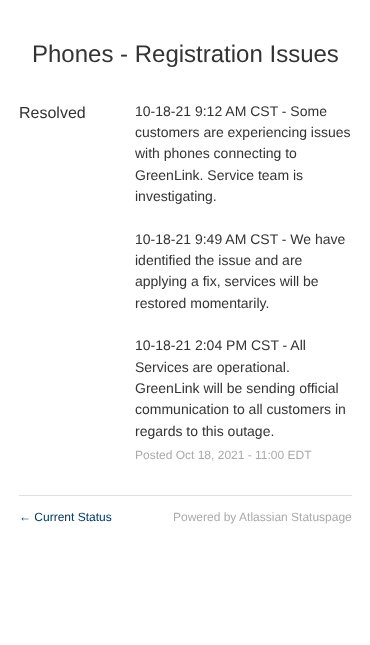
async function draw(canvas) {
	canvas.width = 370;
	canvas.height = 645;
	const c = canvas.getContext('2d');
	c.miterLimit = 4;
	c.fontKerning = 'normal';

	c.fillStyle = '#fff';
	c.fillRect(0, 0, 370, 645);
	c.font = '24px Liberation Sans';
	c.fillStyle = '#333';
	c.fillText('Phones - Registration Issues', 32, 62);
	c.font = '16px Liberation Sans';
	c.fillText('Resolved', 19, 118);
	c.font = '14px Liberation Sans';
	for (const [text, x, y] of [
		['10-18-21 9:12 AM CST - Some', 135, 116],
		['customers are experiencing issues', 135, 137],
		['with phones connecting to', 135, 158],
		['GreenLink. Service team is', 135, 180],
		['investigating.', 135, 201],
		['10-18-21 9:49 AM CST - We have', 135, 244],
		['identified the issue and are', 135, 265],
		['applying a fix, services will be', 135, 286],
		['restored momentarily.', 135, 308],
		['10-18-21 2:04 PM CST - All', 135, 350],
		['Services are operational.', 135, 372],
		['GreenLink will be sending official', 135, 393],
		['communication to all customers in', 135, 414],
		['regards to this outage.', 135, 436],
	]) {
		c.fillText(text, x, y);
	}
	c.font = '12px Liberation Sans';
	c.fillStyle = '#aaa';
	c.fillText('Posted Oct 18, 2021 - 11:00 EDT', 135, 459);
	c.fillStyle = '#e0e0e0';
	c.fillRect(19, 495, 333, 1);
	c.fillStyle = '#003764';
	c.fillText('← Current Status', 19, 521);
	c.fillStyle = '#aaa';
	c.fillText('Powered by Atlassian Statuspage', 173, 521);
}

draw(document.querySelector('canvas'));
